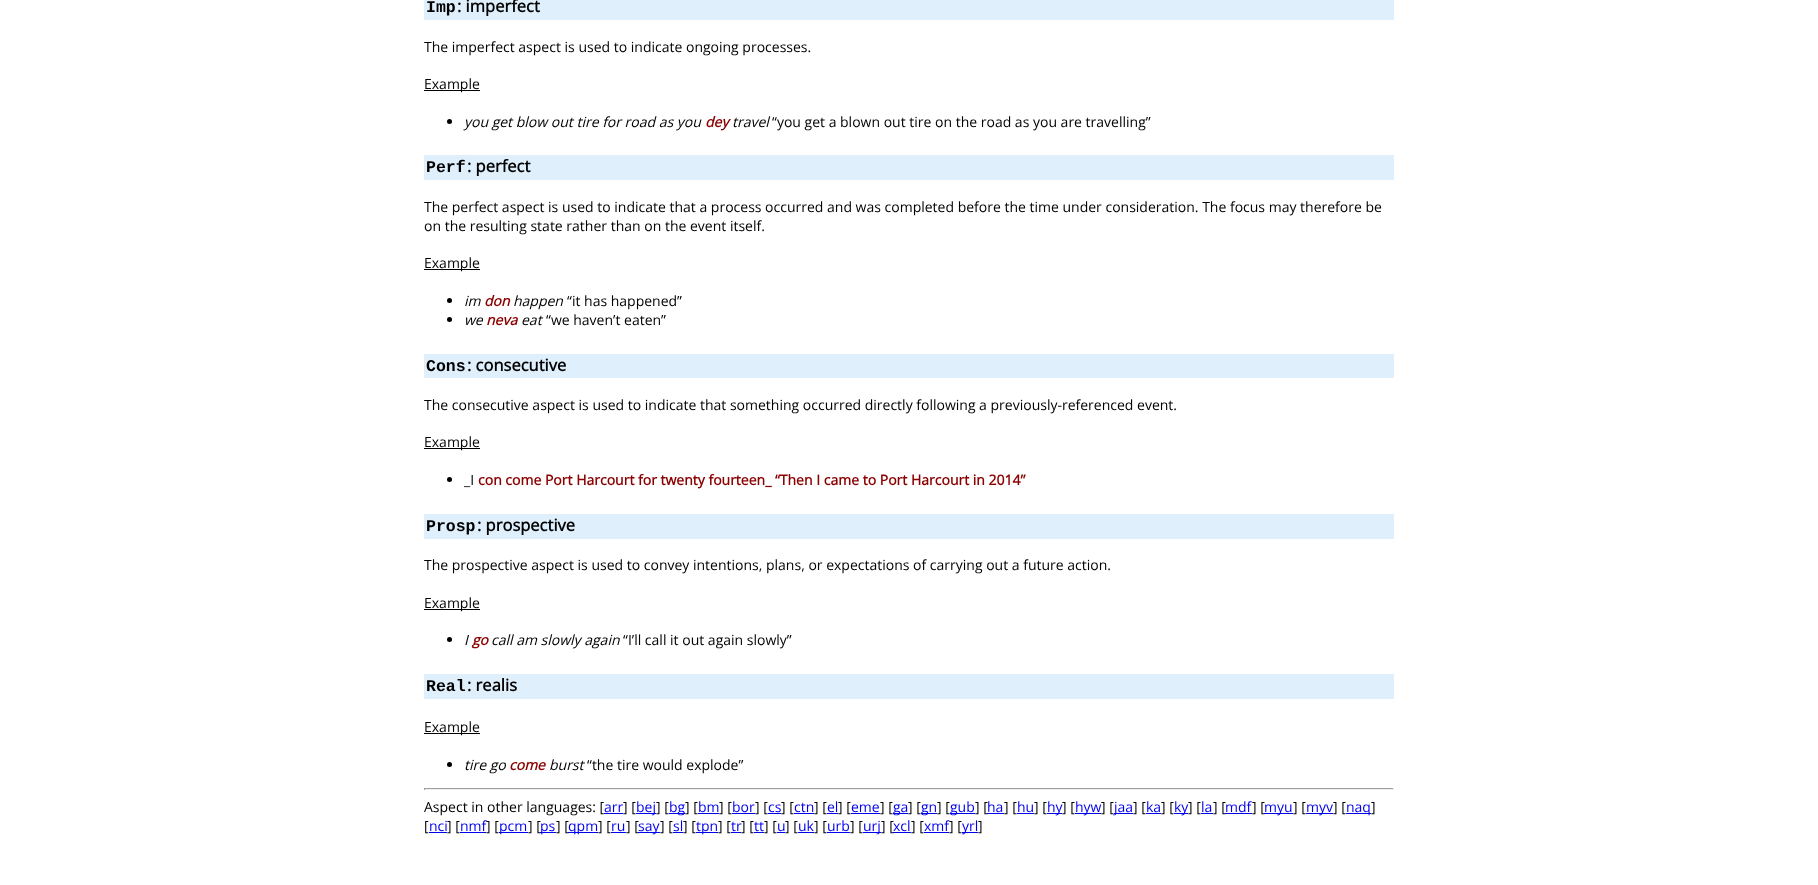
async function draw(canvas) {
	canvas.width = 1818;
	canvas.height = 885;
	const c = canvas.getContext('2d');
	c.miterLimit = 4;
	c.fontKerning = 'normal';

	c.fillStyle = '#fff';
	c.fillRect(0, 0, 1818, 885);
	c.fillStyle = '#dfeffc';
	c.fillRect(424, 0, 970, 20);
	c.font = 'bold 16.5px Liberation Mono';
	c.fillStyle = '#000';
	c.fillText('Imp', 426, 12);
	c.font = 'bold 16.5px Open Sans';
	c.fillText(': imperfect', 457, 12);
	c.font = '14px Open Sans';
	c.fillText('The imperfect aspect is used to indicate ongoing processes.', 424, 52);
	c.fillRect(424, 90, 56, 1);
	c.fillText('Example', 424, 89);
	c.beginPath();
	c.arc(449.5, 121.5, 2.5, 0, 2 * Math.PI);
	c.fill();
	c.font = 'italic 14px Open Sans';
	c.fillText('you get blow out tire for road as you', 464, 127);
	c.font = 'italic bold 14px Open Sans';
	c.fillStyle = '#8b0000';
	c.fillText('dey', 705, 127);
	c.font = 'italic 14px Open Sans';
	c.fillStyle = '#000';
	c.fillText('travel', 732, 127);
	c.font = '14px Open Sans';
	c.fillText('“you get a blown out tire on the road as you are travelling”', 772, 127);
	c.fillStyle = '#dfeffc';
	c.fillRect(424, 155, 970, 25);
	c.font = 'bold 16.5px Liberation Mono';
	c.fillStyle = '#000';
	c.fillText('Perf', 426, 172);
	c.font = 'bold 16.5px Open Sans';
	c.fillText(': perfect', 467, 172);
	c.font = '14px Open Sans';
	c.fillText('The perfect aspect is used to indicate that a process occurred and was completed before the time under consideration. The focus may therefore be', 424, 212);
	c.fillText('on the resulting state rather than on the event itself.', 424, 231);
	c.fillRect(424, 269, 56, 1);
	c.fillText('Example', 424, 268);
	c.beginPath();
	c.arc(449.5, 300.5, 2.5, 0, 2 * Math.PI);
	c.fill();
	c.font = 'italic 14px Open Sans';
	c.fillText('im', 464, 306);
	c.font = 'italic bold 14px Open Sans';
	c.fillStyle = '#8b0000';
	c.fillText('don', 484, 306);
	c.font = 'italic 14px Open Sans';
	c.fillStyle = '#000';
	c.fillText('happen', 513, 306);
	c.font = '14px Open Sans';
	c.fillText('“it has happened”', 567, 306);
	c.beginPath();
	c.arc(449.5, 319.5, 2.5, 0, 2 * Math.PI);
	c.fill();
	c.font = 'italic 14px Open Sans';
	c.fillText('we', 464, 325);
	c.font = 'italic bold 14px Open Sans';
	c.fillStyle = '#8b0000';
	c.fillText('neva', 486, 325);
	c.font = 'italic 14px Open Sans';
	c.fillStyle = '#000';
	c.fillText('eat', 521, 325);
	c.font = '14px Open Sans';
	c.fillText('“we haven’t eaten”', 546, 325);
	c.fillStyle = '#dfeffc';
	c.fillRect(424, 354, 970, 24);
	c.font = 'bold 16.5px Liberation Mono';
	c.fillStyle = '#000';
	c.fillText('Cons', 426, 371);
	c.font = 'bold 16.5px Open Sans';
	c.fillText(': consecutive', 467, 371);
	c.font = '14px Open Sans';
	c.fillText('The consecutive aspect is used to indicate that something occurred directly following a previously-referenced event.', 424, 410);
	c.fillRect(424, 448, 56, 1);
	c.fillText('Example', 424, 447);
	c.beginPath();
	c.arc(449.5, 479.5, 2.5, 0, 2 * Math.PI);
	c.fill();
	c.fillText('_I', 464, 485);
	c.font = 'bold 14px Open Sans';
	c.fillStyle = '#8b0000';
	c.fillText('con come Port Harcourt for twenty fourteen_ “Then I came to Port Harcourt in 2014”', 478, 485);
	c.fillStyle = '#dfeffc';
	c.fillRect(424, 514, 970, 25);
	c.font = 'bold 16.5px Liberation Mono';
	c.fillStyle = '#000';
	c.fillText('Prosp', 426, 531);
	c.font = 'bold 16.5px Open Sans';
	c.fillText(': prospective', 477, 531);
	c.font = '14px Open Sans';
	c.fillText('The prospective aspect is used to convey intentions, plans, or expectations of carrying out a future action.', 424, 570);
	c.fillRect(424, 609, 56, 1);
	c.fillText('Example', 424, 608);
	c.beginPath();
	c.arc(449.5, 639.5, 2.5, 0, 2 * Math.PI);
	c.fill();
	c.font = 'italic 14px Open Sans';
	c.fillText('I', 464, 645);
	c.font = 'italic bold 14px Open Sans';
	c.fillStyle = '#8b0000';
	c.fillText('go', 472, 645);
	c.font = 'italic 14px Open Sans';
	c.fillStyle = '#000';
	c.fillText('call am slowly again', 491, 645);
	c.font = '14px Open Sans';
	c.fillText('“I’ll call it out again slowly”', 623, 645);
	c.fillStyle = '#dfeffc';
	c.fillRect(424, 674, 970, 25);
	c.font = 'bold 16.5px Liberation Mono';
	c.fillStyle = '#000';
	c.fillText('Real', 426, 691);
	c.font = 'bold 16.5px Open Sans';
	c.fillText(': realis', 467, 691);
	c.fillRect(424, 733, 56, 1);
	c.font = '14px Open Sans';
	c.fillText('Example', 424, 732);
	c.beginPath();
	c.arc(449.5, 764.5, 2.5, 0, 2 * Math.PI);
	c.fill();
	c.font = 'italic 14px Open Sans';
	c.fillText('tire go', 464, 770);
	c.font = 'italic bold 14px Open Sans';
	c.fillStyle = '#8b0000';
	c.fillText('come', 509, 770);
	c.font = 'italic 14px Open Sans';
	c.fillStyle = '#000';
	c.fillText('burst', 549, 770);
	c.font = '14px Open Sans';
	c.fillText('“the tire would explode”', 587, 770);
	for (const [x, y, w, h, color] of [
		[424, 788, 970, 1, '#9f9f9f'],
		[1393, 788, 1, 2, '#eee'],
		[424, 789, 970, 1, '#eee'],
		[424, 788, 1, 2, '#9f9f9f'],
	]) {
		c.fillStyle = color;
		c.fillRect(x, y, w, h);
	}
	c.fillStyle = '#000';
	c.fillText('Aspect in other languages: [', 424, 812);
	c.fillStyle = '#00e';
	c.fillText('arr', 604, 812);
	c.fillRect(604, 813, 19, 1);
	c.fillStyle = '#000';
	c.fillText('] [', 623, 812);
	c.fillStyle = '#00e';
	c.fillRect(636, 813, 20, 1);
	c.fillText('bej', 636, 812);
	c.fillStyle = '#000';
	c.fillText('] [', 656, 812);
	c.fillStyle = '#00e';
	c.fillRect(669, 813, 16, 1);
	c.fillText('bg', 669, 812);
	c.fillStyle = '#000';
	c.fillText('] [', 685, 812);
	c.fillStyle = '#00e';
	c.fillText('bm', 698, 812);
	c.fillRect(698, 813, 21, 1);
	c.fillStyle = '#000';
	c.fillText('] [', 719, 812);
	c.fillStyle = '#00e';
	c.fillText('bor', 732, 812);
	c.fillRect(732, 813, 23, 1);
	c.fillStyle = '#000';
	c.fillText('] [', 755, 812);
	c.fillStyle = '#00e';
	c.fillText('cs', 768, 812);
	c.fillRect(768, 813, 13, 1);
	c.fillStyle = '#000';
	c.fillText('] [', 781, 812);
	c.fillStyle = '#00e';
	c.fillText('ctn', 794, 812);
	c.fillRect(794, 813, 20, 1);
	c.fillStyle = '#000';
	c.fillText('] [', 814, 812);
	c.fillStyle = '#00e';
	c.fillText('el', 827, 812);
	c.fillRect(827, 813, 11, 1);
	c.fillStyle = '#000';
	c.fillText('] [', 838, 812);
	c.fillStyle = '#00e';
	c.fillText('eme', 851, 812);
	c.fillRect(851, 813, 29, 1);
	c.fillStyle = '#000';
	c.fillText('] [', 880, 812);
	c.fillStyle = '#00e';
	c.fillRect(893, 813, 15, 1);
	c.fillText('ga', 893, 812);
	c.fillStyle = '#000';
	c.fillText('] [', 908, 812);
	c.fillStyle = '#00e';
	c.fillRect(921, 813, 16, 1);
	c.fillText('gn', 921, 812);
	c.fillStyle = '#000';
	c.fillText('] [', 937, 812);
	c.fillStyle = '#00e';
	c.fillRect(950, 813, 25, 1);
	c.fillText('gub', 950, 812);
	c.fillStyle = '#000';
	c.fillText('] [', 975, 812);
	c.fillStyle = '#00e';
	c.fillText('ha', 987, 812);
	c.fillRect(987, 813, 17, 1);
	c.fillStyle = '#000';
	c.fillText('] [', 1004, 812);
	c.fillStyle = '#00e';
	c.fillText('hu', 1017, 812);
	c.fillRect(1017, 813, 17, 1);
	c.fillStyle = '#000';
	c.fillText('] [', 1034, 812);
	c.fillStyle = '#00e';
	c.fillRect(1047, 813, 15, 1);
	c.fillText('hy', 1047, 812);
	c.fillStyle = '#000';
	c.fillText('] [', 1062, 812);
	c.fillStyle = '#00e';
	c.fillRect(1075, 813, 26, 1);
	c.fillText('hyw', 1075, 812);
	c.fillStyle = '#000';
	c.fillText('] [', 1101, 812);
	c.fillStyle = '#00e';
	c.fillRect(1114, 813, 19, 1);
	c.fillText('jaa', 1114, 812);
	c.fillStyle = '#000';
	c.fillText('] [', 1133, 812);
	c.fillStyle = '#00e';
	c.fillText('ka', 1146, 812);
	c.fillRect(1146, 813, 15, 1);
	c.fillStyle = '#000';
	c.fillText('] [', 1161, 812);
	c.fillStyle = '#00e';
	c.fillRect(1174, 813, 14, 1);
	c.fillText('ky', 1174, 812);
	c.fillStyle = '#000';
	c.fillText('] [', 1188, 812);
	c.fillStyle = '#00e';
	c.fillText('la', 1201, 812);
	c.fillRect(1201, 813, 12, 1);
	c.fillStyle = '#000';
	c.fillText('] [', 1213, 812);
	c.fillStyle = '#00e';
	c.fillText('mdf', 1225, 812);
	c.fillRect(1225, 813, 27, 1);
	c.fillStyle = '#000';
	c.fillText('] [', 1252, 812);
	c.fillStyle = '#00e';
	c.fillRect(1264, 813, 29, 1);
	c.fillText('myu', 1264, 812);
	c.fillStyle = '#000';
	c.fillText('] [', 1293, 812);
	c.fillStyle = '#00e';
	c.fillRect(1306, 813, 27, 1);
	c.fillText('myv', 1306, 812);
	c.fillStyle = '#000';
	c.fillText('] [', 1333, 812);
	c.fillStyle = '#00e';
	c.fillRect(1346, 813, 25, 1);
	c.fillText('naq', 1346, 812);
	c.fillStyle = '#000';
	c.fillText(']', 1371, 812);
	c.fillText('[', 424, 831);
	c.fillStyle = '#00e';
	c.fillText('nci', 429, 831);
	c.fillRect(429, 832, 18, 1);
	c.fillStyle = '#000';
	c.fillText('] [', 447, 831);
	c.fillStyle = '#00e';
	c.fillText('nmf', 460, 831);
	c.fillRect(460, 832, 26, 1);
	c.fillStyle = '#000';
	c.fillText('] [', 486, 831);
	c.fillStyle = '#00e';
	c.fillRect(499, 832, 29, 1);
	c.fillText('pcm', 499, 831);
	c.fillStyle = '#000';
	c.fillText('] [', 528, 831);
	c.fillStyle = '#00e';
	c.fillRect(540, 832, 16, 1);
	c.fillText('ps', 540, 831);
	c.fillStyle = '#000';
	c.fillText('] [', 556, 831);
	c.fillStyle = '#00e';
	c.fillRect(568, 832, 30, 1);
	c.fillText('qpm', 568, 831);
	c.fillStyle = '#000';
	c.fillText('] [', 598, 831);
	c.fillStyle = '#00e';
	c.fillText('ru', 611, 831);
	c.fillRect(611, 832, 15, 1);
	c.fillStyle = '#000';
	c.fillText('] [', 626, 831);
	c.fillStyle = '#00e';
	c.fillRect(638, 832, 22, 1);
	c.fillText('say', 638, 831);
	c.fillStyle = '#000';
	c.fillText('] [', 660, 831);
	c.fillStyle = '#00e';
	c.fillText('sl', 673, 831);
	c.fillRect(673, 832, 10, 1);
	c.fillStyle = '#000';
	c.fillText('] [', 683, 831);
	c.fillStyle = '#00e';
	c.fillRect(696, 832, 22, 1);
	c.fillText('tpn', 696, 831);
	c.fillStyle = '#000';
	c.fillText('] [', 718, 831);
	c.fillStyle = '#00e';
	c.fillText('tr', 731, 831);
	c.fillRect(731, 832, 10, 1);
	c.fillStyle = '#000';
	c.fillText('] [', 741, 831);
	c.fillStyle = '#00e';
	c.fillText('tt', 754, 831);
	c.fillRect(754, 832, 10, 1);
	c.fillStyle = '#000';
	c.fillText('] [', 764, 831);
	c.fillStyle = '#00e';
	c.fillText('u', 777, 831);
	c.fillRect(777, 832, 8, 1);
	c.fillStyle = '#000';
	c.fillText('] [', 785, 831);
	c.fillStyle = '#00e';
	c.fillText('uk', 798, 831);
	c.fillRect(798, 832, 16, 1);
	c.fillStyle = '#000';
	c.fillText('] [', 814, 831);
	c.fillStyle = '#00e';
	c.fillText('urb', 827, 831);
	c.fillRect(827, 832, 23, 1);
	c.fillStyle = '#000';
	c.fillText('] [', 850, 831);
	c.fillStyle = '#00e';
	c.fillRect(863, 832, 18, 1);
	c.fillText('urj', 863, 831);
	c.fillStyle = '#000';
	c.fillText('] [', 881, 831);
	c.fillStyle = '#00e';
	c.fillText('xcl', 893, 831);
	c.fillRect(893, 832, 18, 1);
	c.fillStyle = '#000';
	c.fillText('] [', 911, 831);
	c.fillStyle = '#00e';
	c.fillText('xmf', 924, 831);
	c.fillRect(924, 832, 25, 1);
	c.fillStyle = '#000';
	c.fillText('] [', 949, 831);
	c.fillStyle = '#00e';
	c.fillRect(962, 832, 16, 1);
	c.fillText('yrl', 962, 831);
	c.fillStyle = '#000';
	c.fillText(']', 978, 831);
}

draw(document.querySelector('canvas'));
